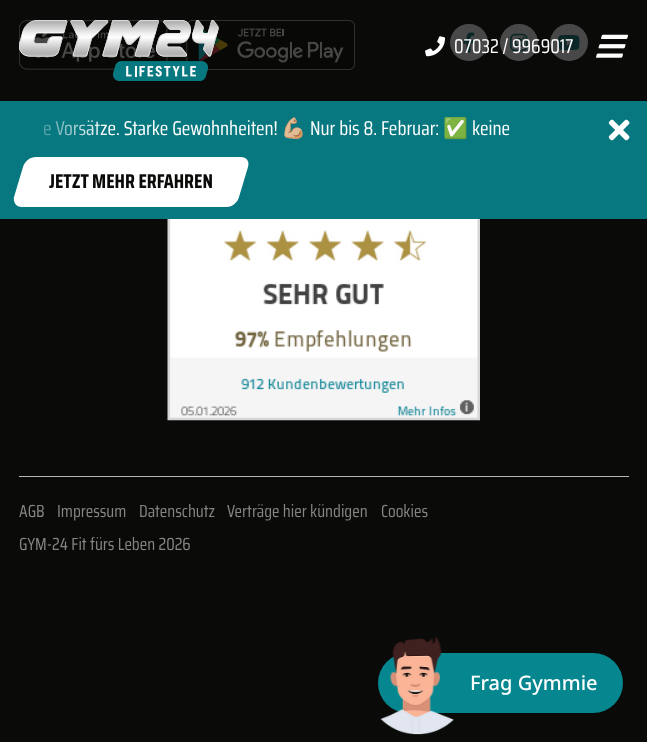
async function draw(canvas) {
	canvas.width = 647;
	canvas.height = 742;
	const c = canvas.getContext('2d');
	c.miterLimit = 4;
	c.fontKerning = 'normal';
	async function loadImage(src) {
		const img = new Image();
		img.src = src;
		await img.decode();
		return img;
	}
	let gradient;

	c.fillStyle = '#0a0b09';
	c.fillRect(0, 0, 647, 742);
	c.drawImage(await loadImage('img5.png'), 19, 20, 149, 50);
	c.drawImage(await loadImage('img6.png'), 186, 20, 169, 50);
	c.drawImage(await loadImage('img1.png'), 19, 20, 200, 61);
	c.drawImage(await loadImage('img2.png'), 425, 36, 20, 21);
	c.fillStyle = '#474847';
	c.beginPath();
	c.roundRect(450, 24, 38, 37, 18.5);
	c.fill();
	c.drawImage(await loadImage('img7.png'), 463, 32, 12, 21);
	c.beginPath();
	c.roundRect(500, 24, 38, 37, 18.5);
	c.fill();
	c.drawImage(await loadImage('img8.png'), 510, 33, 18, 19);
	c.beginPath();
	c.roundRect(550, 24, 38, 37, 18.5);
	c.fill();
	c.drawImage(await loadImage('img9.png'), 558, 35, 22, 15);
	c.font = '20px Saira Condensed';
	c.fillStyle = '#fff';
	c.fillText('07032 / 9969017', 454, 53);
	c.drawImage(await loadImage('img3.png'), 596, 34, 32, 24);
	c.fillStyle = '#087880';
	c.fillRect(0, 101, 647, 118);
	c.fillStyle = '#fff';
	c.fillText('e Vorsätze. Starke Gewohnheiten!', 43, 135);
	c.font = '20px Noto Color Emoji';
	c.fillText('💪🏼', 281, 135);
	c.fillText('✅', 443, 135);
	gradient = c.createLinearGradient(19, 129, 106, 129);
	gradient.addColorStop(0, '#087880');
	gradient.addColorStop(1, '#08788000');
	c.fillStyle = gradient;
	c.fillRect(43, 120, 61, 16);
	c.font = '20px Saira Condensed';
	c.fillStyle = '#fff';
	c.fillText('Nur bis 8. Februar:', 310, 135);
	c.fillText('keine', 472, 135);
	c.drawImage(await loadImage('img4.png'), 608, 119, 22, 22);
	c.beginPath();
	c.moveTo(36, 157);
	c.lineTo(241, 157);
	c.bezierCurveTo(246, 157, 250, 161, 248, 167);
	c.lineTo(239, 197);
	c.bezierCurveTo(238, 202, 232, 207, 227, 207);
	c.lineTo(22, 207);
	c.bezierCurveTo(16, 207, 13, 202, 14, 197);
	c.lineTo(23, 167);
	c.bezierCurveTo(25, 161, 30, 157, 36, 157);
	c.closePath();
	c.fill();
	c.font = 'bold 20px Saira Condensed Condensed';
	c.fillStyle = '#0a0b09';
	c.fillText('JETZT MEHR ERFAHREN', 49, 188);
	c.drawImage(await loadImage('img10.png'), 167, 219, 313, 202);
	c.fillStyle = '#b6b6b5';
	c.fillRect(19, 476, 610, 1);
	c.font = '17.5px Saira Condensed';
	c.fillStyle = '#858584';
	for (const [text, x, y] of [
		['AGB', 19, 517],
		['Impressum', 57, 517],
		['Datenschutz', 139, 517],
		['Verträge hier kündigen', 227, 517],
		['Cookies', 381, 517],
		['GYM-24 Fit fürs Leben 2026', 19, 550],
	]) {
		c.fillText(text, x, y);
	}
	c.fillStyle = '#068790';
	c.beginPath();
	c.roundRect(378, 653, 245, 60, 30);
	c.fill();
	c.drawImage(await loadImage('img11.png'), 380, 636, 74, 99);
	c.font = '500 20px Noto Sans';
	c.fillStyle = '#fff';
	c.fillText('Frag Gymmie', 470, 690);
}

draw(document.querySelector('canvas'));
